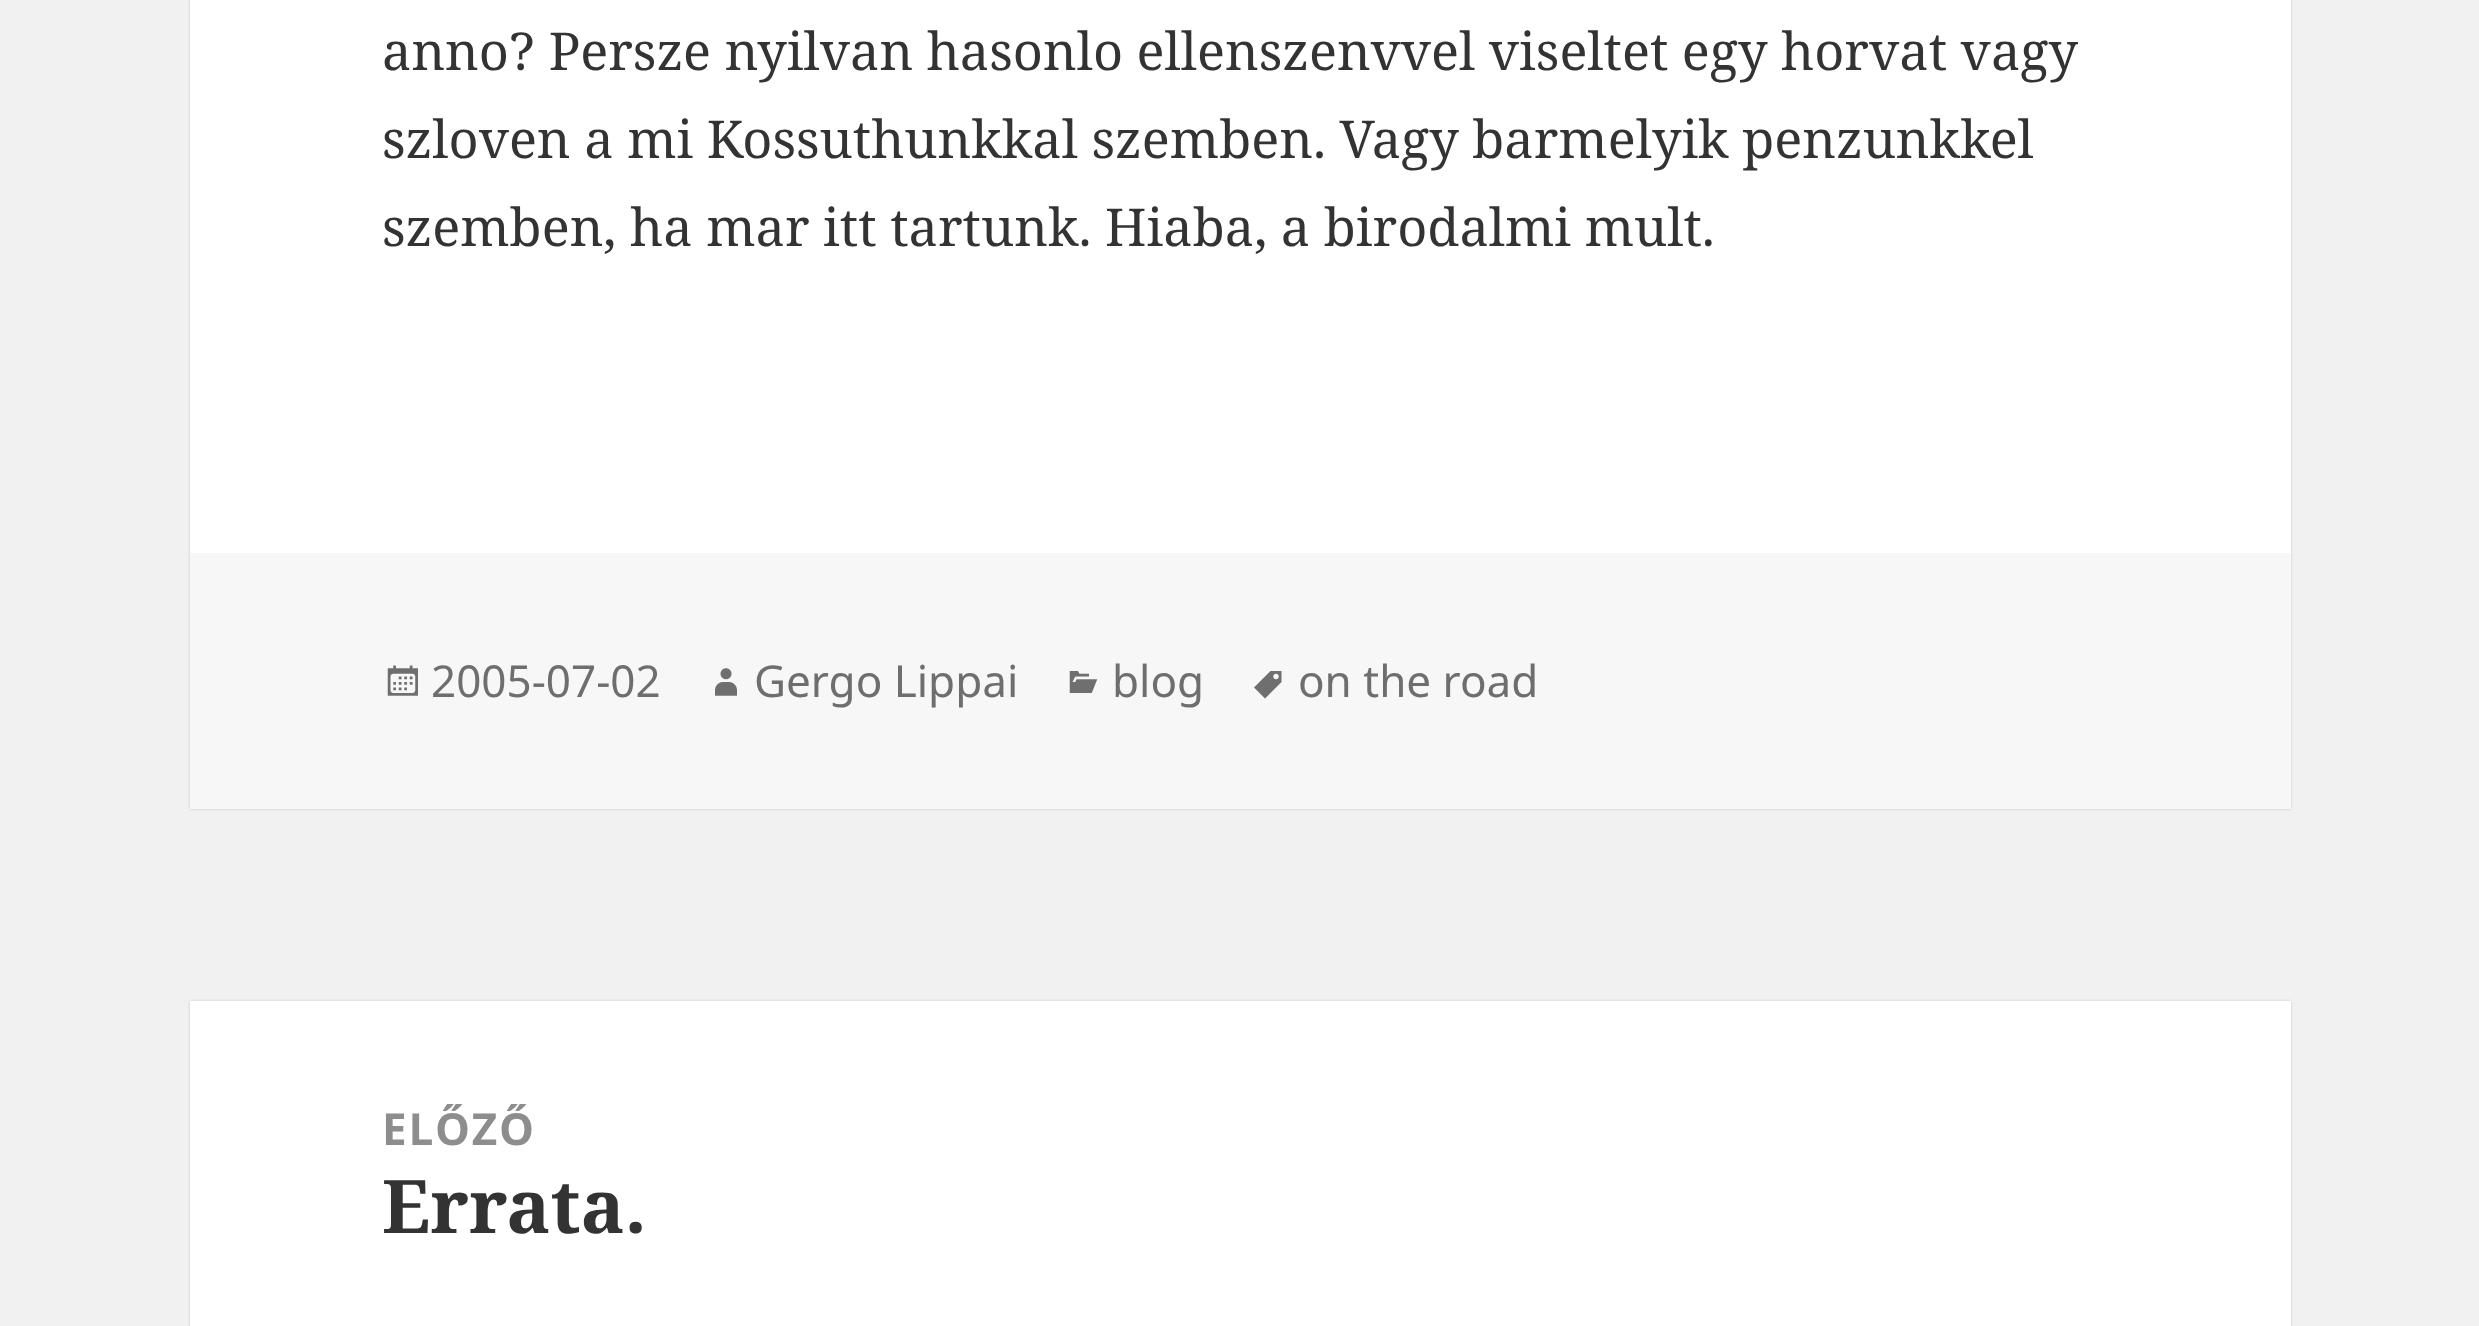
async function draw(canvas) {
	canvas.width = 2479;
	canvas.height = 1326;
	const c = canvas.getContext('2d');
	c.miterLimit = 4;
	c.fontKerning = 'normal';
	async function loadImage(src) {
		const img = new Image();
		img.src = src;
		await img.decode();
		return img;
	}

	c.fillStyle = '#f1f1f1';
	c.fillRect(0, 0, 2479, 1326);
	c.fillStyle = '#00000026';
	c.filter = 'blur(1.5px)';
	c.beginPath();
	c.rect(190, -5, 2101, 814);
	c.fill();
	c.filter = 'none';
	c.fillStyle = '#fff';
	c.fillRect(190, 0, 2101, 553);
	c.font = '52.25px Noto Serif';
	c.fillStyle = '#333';
	for (const [text, x, y] of [
		['anno? Persze nyilvan hasonlo ellenszenvvel viseltet egy horvat vagy', 382, 70],
		['szloven a mi Kossuthunkkal szemben. Vagy barmelyik penzunkkel', 382, 158],
		['szemben, ha mar itt tartunk. Hiaba, a birodalmi mult.', 382, 246],
	]) {
		c.fillText(text, x, y);
	}
	c.fillStyle = '#f7f7f7';
	c.fillRect(190, 553, 2101, 256);
	c.drawImage(await loadImage('img1.png'), 387, 665, 31, 31);
	c.font = '44px Noto Sans';
	c.fillStyle = '#6e6e6e';
	c.fillText('2005-07-02', 431, 697);
	c.drawImage(await loadImage('img2.png'), 715, 668, 22, 28);
	c.fillText('Gergo Lippai', 754, 697);
	c.drawImage(await loadImage('img3.png'), 1069, 671, 29, 22);
	c.fillText('blog', 1112, 697);
	c.drawImage(await loadImage('img4.png'), 1254, 671, 28, 28);
	c.fillText('on the road', 1298, 697);
	c.fillStyle = '#00000026';
	c.filter = 'blur(1.5px)';
	c.beginPath();
	c.rect(190, 1001, 2101, 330);
	c.fill();
	c.filter = 'none';
	c.fillStyle = '#fff';
	c.fillRect(190, 1001, 2101, 325);
	c.letterSpacing = '1.75px';
	c.font = 'bold 44px Noto Sans';
	c.fillStyle = '#8d8d8d';
	c.fillText('ELŐZŐ', 382, 1145);
	c.letterSpacing = '0px';
	c.font = 'bold 74px Noto Serif';
	c.fillStyle = '#333';
	c.fillText('Errata.', 382, 1233);
}

draw(document.querySelector('canvas'));
